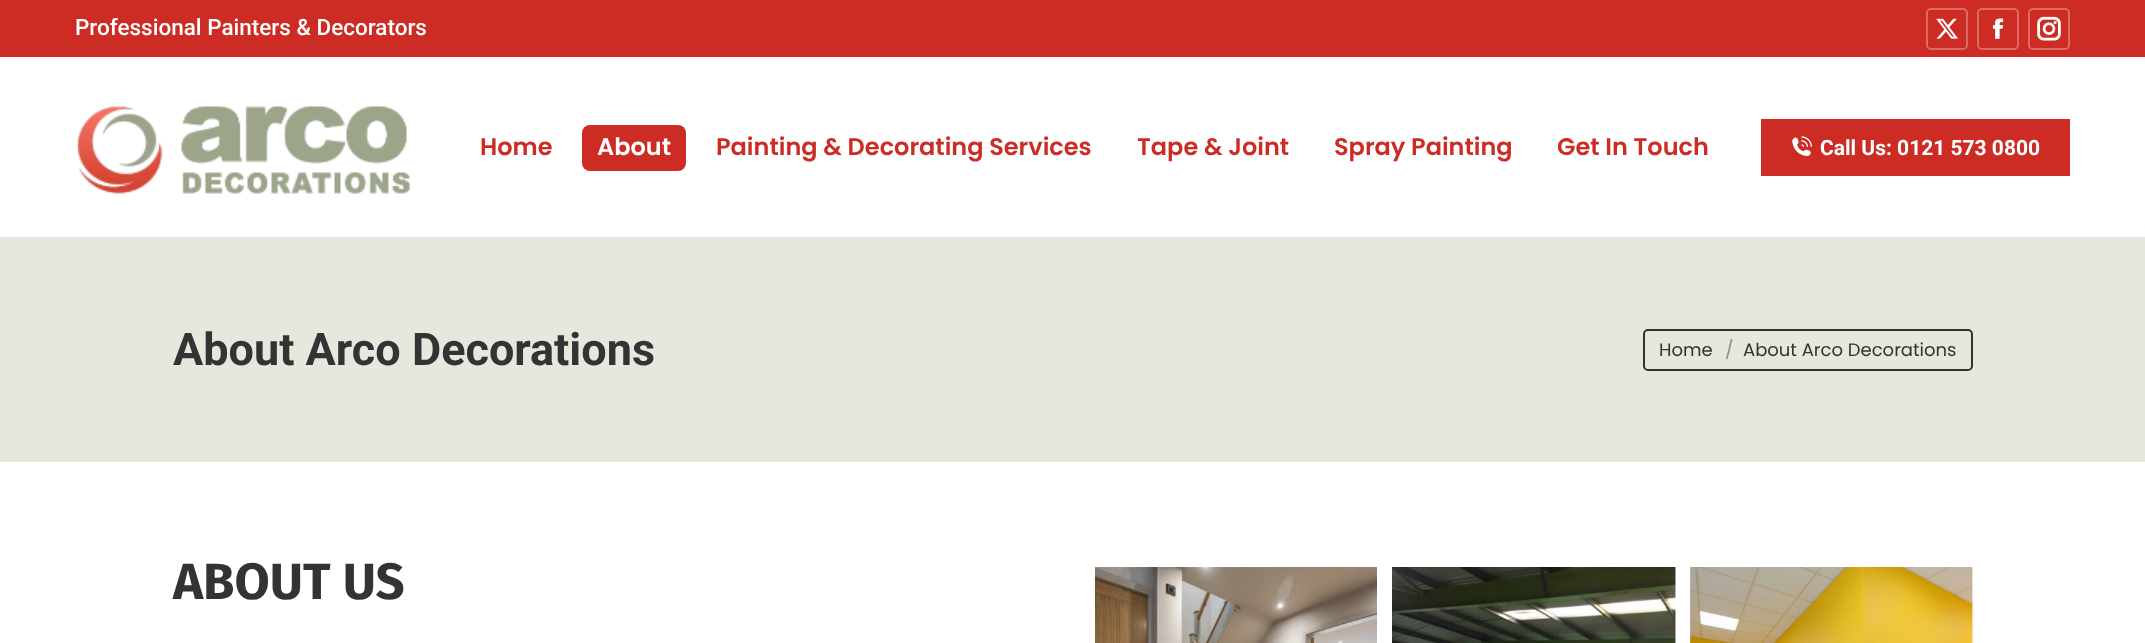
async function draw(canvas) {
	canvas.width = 2145;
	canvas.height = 643;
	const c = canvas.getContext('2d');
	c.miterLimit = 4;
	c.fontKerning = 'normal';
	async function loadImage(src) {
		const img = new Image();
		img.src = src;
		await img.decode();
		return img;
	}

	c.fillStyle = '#fff';
	c.fillRect(0, 0, 2145, 643);
	c.fillStyle = '#cc2c24';
	c.fillRect(0, 0, 2145, 57);
	c.font = '500 22.5px Roboto';
	c.fillStyle = '#fff';
	c.fillText('Professional Painters & Decorators', 75, 35);
	c.beginPath();
	c.roundRect(1927, 9, 40, 40, 4);
	c.strokeStyle = '#db6b66';
	c.lineWidth = 2;
	c.stroke();
	c.drawImage(await loadImage('img1.png'), 1936, 18, 22, 21);
	c.beginPath();
	c.roundRect(1978, 9, 40, 40, 4);
	c.stroke();
	c.drawImage(await loadImage('img2.png'), 1992, 18, 12, 21);
	c.beginPath();
	c.roundRect(2029, 9, 40, 40, 4);
	c.stroke();
	c.drawImage(await loadImage('img3.png'), 2037, 16, 24, 25);
	c.drawImage(await loadImage('img4.png'), 77, 106, 333, 88);
	c.font = '600 24px Poppins';
	c.fillStyle = '#cc2c24';
	c.fillText('Home', 480, 155);
	c.beginPath();
	c.roundRect(582, 125, 104, 46, 8);
	c.fill();
	c.fillStyle = '#fff';
	c.fillText('About', 597, 155);
	c.fillStyle = '#cc2c24';
	for (const [text, x, y] of [
		['Painting & Decorating Services', 716, 155],
		['Tape & Joint', 1137, 155],
		['Spray Painting', 1334, 155],
		['Get In Touch', 1557, 155],
	]) {
		c.fillText(text, x, y);
	}
	c.fillRect(1761, 119, 309, 57);
	c.drawImage(await loadImage('img5.png'), 1792, 136, 20, 20);
	c.font = 'bold 21px Roboto';
	c.fillStyle = '#fff';
	c.fillText('Call Us: 0121 573 0800', 1820, 155);
	c.fillStyle = '#e4e8dd';
	c.fillRect(0, 237, 2145, 225);
	c.font = 'bold 45px Roboto';
	c.fillStyle = '#333';
	c.fillText('About Arco Decorations', 173, 365);
	c.beginPath();
	c.roundRect(1644, 330, 328, 40, 4);
	c.strokeStyle = '#333';
	c.stroke();
	c.font = '18px Poppins';
	c.fillText('Home', 1659, 356);
	c.fillStyle = '#8c8e88';
	c.fillText('/', 1725, 356);
	c.fillStyle = '#333';
	c.fillText('About Arco Decorations', 1743, 356);
	c.font = 'bold 51px Fira Sans';
	c.fillText('ABOUT US', 173, 599);
	c.drawImage(await loadImage('img6.png'), 1095, 567, 282, 76);
	c.drawImage(await loadImage('img7.png'), 1392, 567, 284, 76);
	c.drawImage(await loadImage('img8.png'), 1690, 567, 283, 76);
}

draw(document.querySelector('canvas'));
